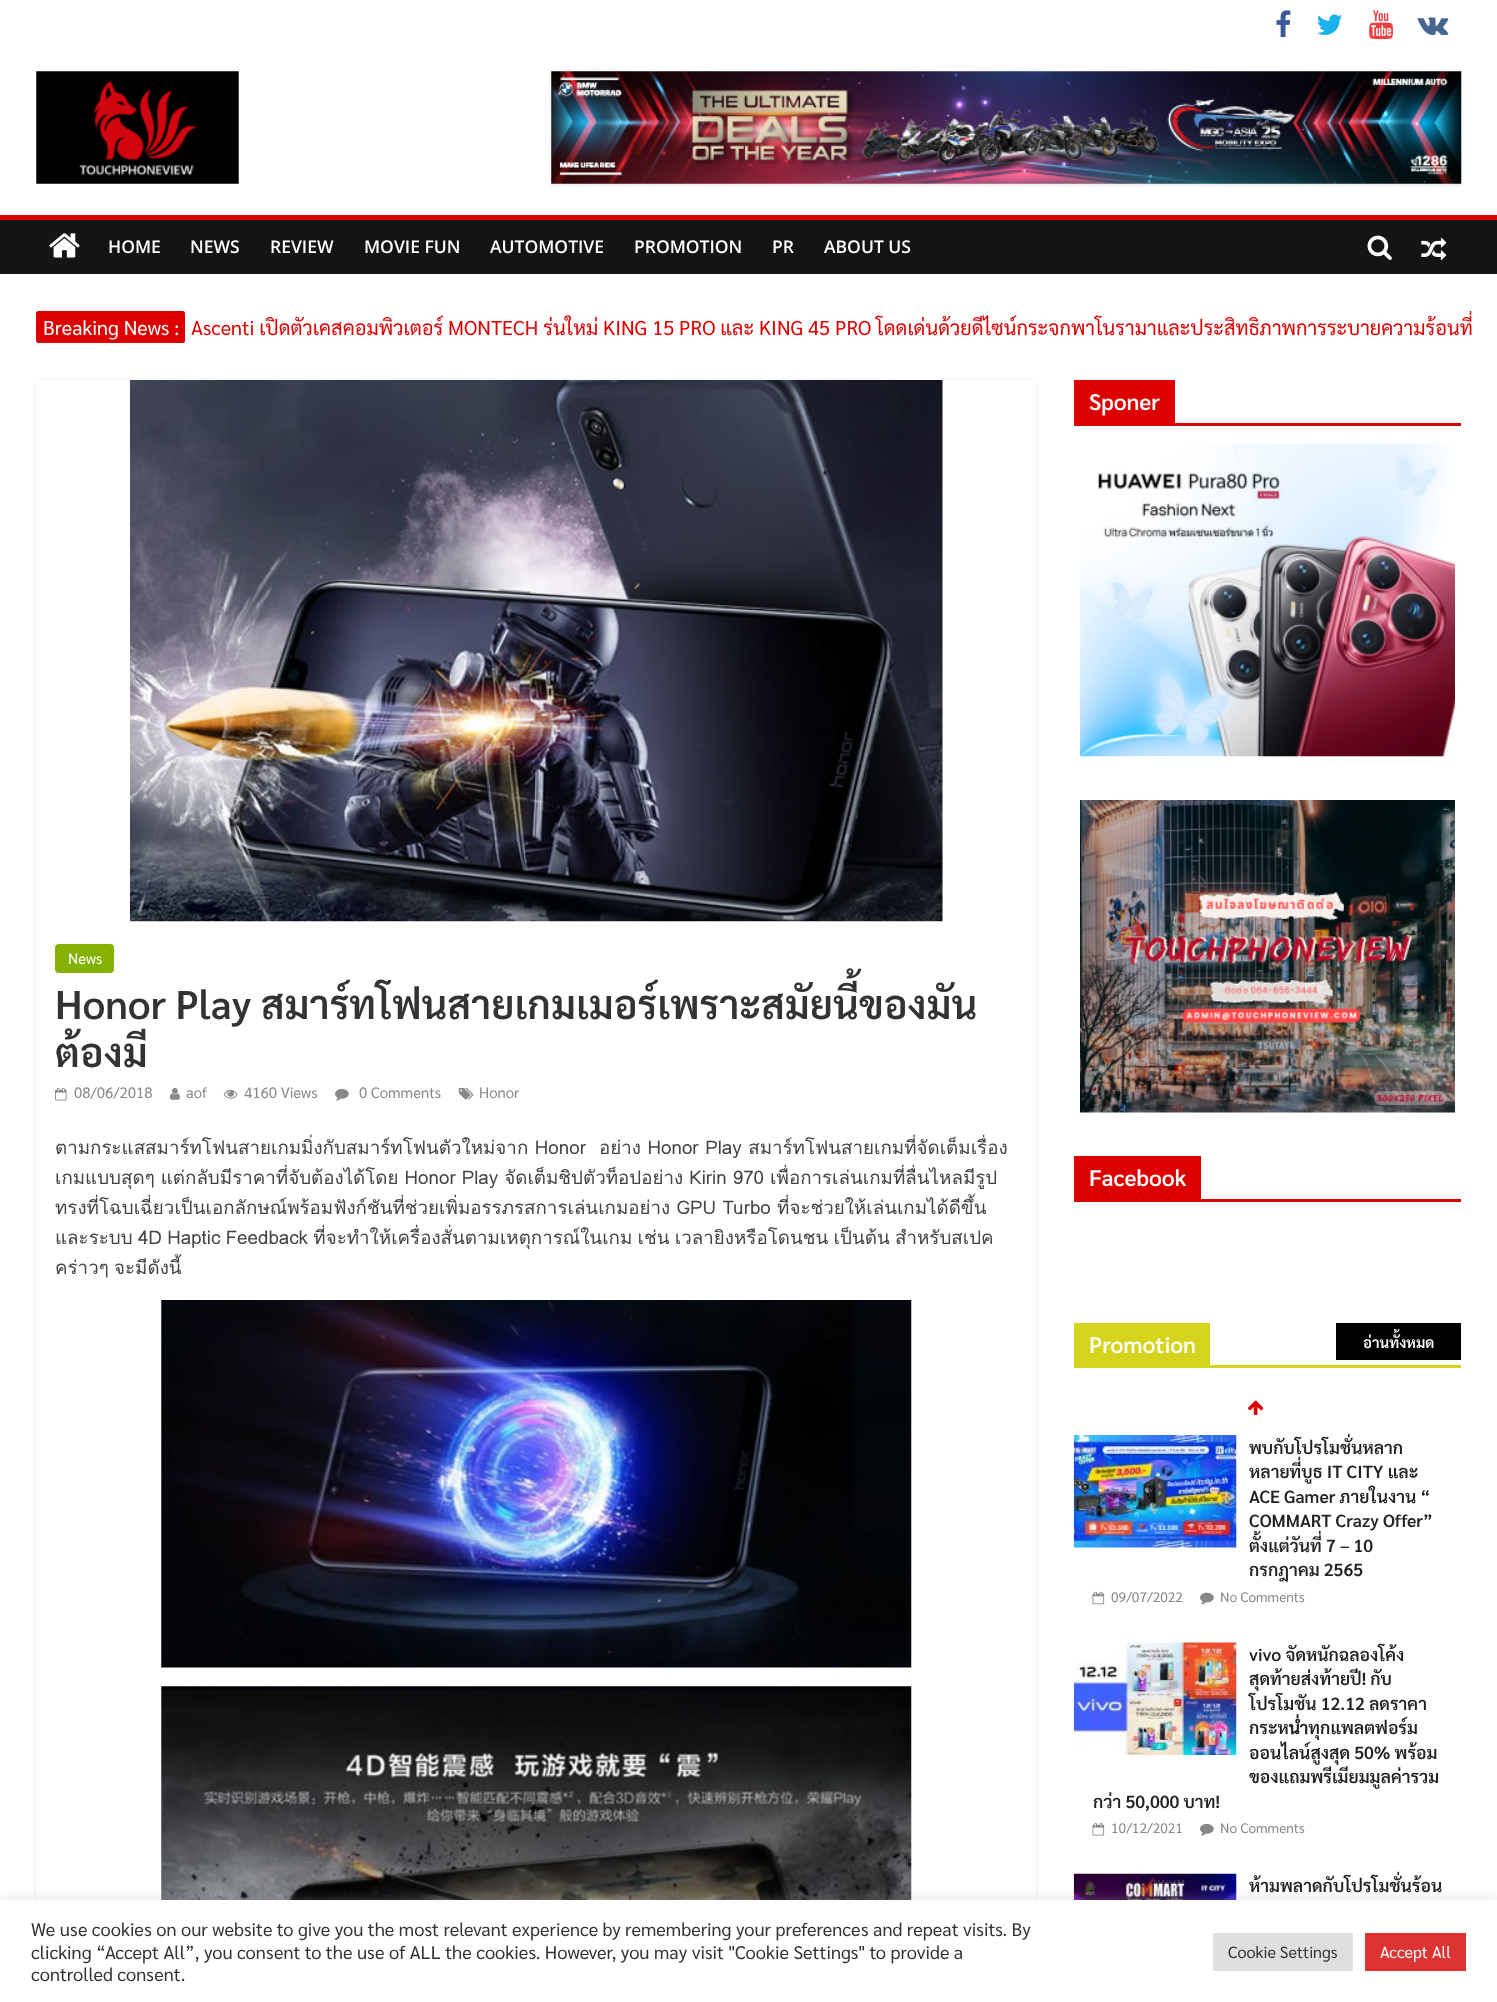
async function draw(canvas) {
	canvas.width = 1497;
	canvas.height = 2002;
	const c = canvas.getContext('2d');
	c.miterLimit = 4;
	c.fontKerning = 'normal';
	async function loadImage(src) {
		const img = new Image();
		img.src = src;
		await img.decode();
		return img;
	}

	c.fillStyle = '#fff';
	c.fillRect(0, 0, 1497, 2002);
	c.drawImage(await loadImage('img1.png'), 1276, 10, 15, 28);
	c.drawImage(await loadImage('img2.png'), 1317, 14, 25, 21);
	c.drawImage(await loadImage('img3.png'), 1369, 10, 24, 30);
	c.drawImage(await loadImage('img4.png'), 1417, 17, 32, 18);
	c.drawImage(await loadImage('img5.png'), 36, 71, 203, 113);
	c.fillStyle = '#0000001a';
	c.filter = 'blur(2px)';
	c.beginPath();
	c.rect(551, 73, 910, 112);
	c.fill();
	c.filter = 'none';
	c.drawImage(await loadImage('img6.png'), 551, 71, 911, 113);
	c.fillStyle = '#141414';
	c.fillRect(0, 220, 1497, 54);
	c.fillStyle = '#d00';
	c.fillRect(0, 215, 1497, 5);
	c.drawImage(await loadImage('img7.png'), 49, 233, 31, 25);
	c.font = '600 17.5px Open Sans';
	c.fillStyle = '#fff';
	for (const [text, x, y] of [
		['HOME', 108, 253],
		['NEWS', 190, 253],
		['REVIEW', 270, 253],
		['MOVIE FUN', 364, 253],
		['AUTOMOTIVE', 490, 253],
		['PROMOTION', 634, 253],
		['PR', 772, 253],
		['ABOUT US', 824, 253],
	]) {
		c.fillText(text, x, y);
	}
	c.drawImage(await loadImage('img8.png'), 1367, 235, 25, 25);
	c.drawImage(await loadImage('img9.png'), 1421, 237, 26, 23);
	c.fillStyle = '#d00';
	c.beginPath();
	c.roundRect(36, 311, 149, 32, 2.5);
	c.fill();
	c.font = '20px Sarabun';
	c.fillStyle = '#fff';
	c.fillText('Breaking News :', 43, 335);
	c.save();
	c.beginPath();
	c.rect(185, 311, 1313, 25);
	c.clip();
	c.fillStyle = '#d00';
	c.fillText('Ascenti เปิดตัวเคสคอมพิวเตอร์ MONTECH รุ่นใหม่ KING 15 PRO และ KING 45 PRO โดดเด่นด้วยดีไซน์กระจกพาโนรามาและประสิทธิภาพการระบายความร้อนที่', 191, 335);
	c.restore();
	c.save();
	c.beginPath();
	c.moveTo(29, 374);
	c.lineTo(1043, 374);
	c.lineTo(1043, 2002);
	c.lineTo(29, 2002);
	c.closePath();
	c.moveTo(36, 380);
	c.lineTo(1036, 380);
	c.lineTo(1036, 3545);
	c.lineTo(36, 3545);
	c.closePath();
	c.clip('evenodd');
	c.fillStyle = '#0000001a';
	c.filter = 'blur(2px)';
	c.beginPath();
	c.rect(36, 381, 1000, 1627);
	c.fill();
	c.filter = 'none';
	c.restore();
	c.drawImage(await loadImage('img10.png'), 130, 380, 813, 542);
	c.fillStyle = '#85b200';
	c.beginPath();
	c.roundRect(55, 944, 59, 29, 4);
	c.fill();
	c.font = '15px Sarabun';
	c.fillStyle = '#fff';
	c.fillText('News', 68, 964);
	c.font = '600 40px Sarabun';
	c.fillStyle = '#333';
	c.fillText('Honor Play สมาร์ทโฟนสายเกมเมอร์เพราะสมัยนี้ของมัน', 55, 1019);
	c.fillText('ต้องมี', 55, 1067);
	c.drawImage(await loadImage('img11.png'), 55, 1088, 12, 13);
	c.font = '15px Sarabun';
	c.fillStyle = '#888';
	c.fillText('08/06/2018', 74, 1098);
	c.drawImage(await loadImage('img12.png'), 170, 1088, 10, 12);
	c.fillText('aof', 186, 1098);
	c.drawImage(await loadImage('img13.png'), 223, 1089, 15, 10);
	c.fillText('4160 Views', 244, 1098);
	c.drawImage(await loadImage('img14.png'), 335, 1088, 14, 13);
	c.fillText('0 Comments', 359, 1098);
	c.drawImage(await loadImage('img15.png'), 458, 1087, 16, 13);
	c.fillText('Honor', 479, 1098);
	c.wordSpacing = '0.25px';
	c.font = '18.75px Loma';
	c.fillStyle = '#444';
	c.fillText('ตามกระแสสมาร์ทโฟนสายเกมมิ่งกับสมาร์ทโฟนตัวใหม่จาก Honor  อย่าง Honor Play สมาร์ทโฟนสายเกมที่จัดเต็มเรื่อง', 55, 1154);
	c.wordSpacing = '-0.25px';
	c.fillText('เกมแบบสุดๆ แต่กลับมีราคาที่จับต้องได้โดย Honor Play จัดเต็มชิปตัวท็อปอย่าง Kirin 970 เพื่อการเล่นเกมที่ลื่นไหลมีรูป', 55, 1184);
	c.wordSpacing = '0px';
	c.fillText('ทรงที่โฉบเฉี่ยวเป็นเอกลักษณ์พร้อมฟังก์ชันที่ช่วยเพิ่มอรรภรสการเล่นเกมอย่าง GPU Turbo ที่จะช่วยให้เล่นเกมได้ดีขึ้น', 55, 1214);
	c.wordSpacing = '-1px';
	c.fillText('และระบบ 4D Haptic Feedback ที่จะทำให้เครื่องสั่นตามเหตุการณ์ในเกม เช่น เวลายิงหรือโดนชน เป็นต้น สำหรับสเปค', 55, 1244);
	c.fillText('คร่าวๆ จะมีดังนี้', 55, 1274);
	c.drawImage(await loadImage('img16.png'), 161, 1300, 751, 368);
	c.drawImage(await loadImage('img17.png'), 161, 1686, 751, 214);
	c.fillStyle = '#d00';
	c.fillRect(1074, 423, 387, 3);
	c.fillRect(1074, 380, 101, 43);
	c.wordSpacing = '0px';
	c.font = '600 22.5px Sarabun';
	c.fillStyle = '#fff';
	c.fillText('Sponer', 1089, 410);
	c.drawImage(await loadImage('img18.png'), 1080, 443, 375, 314);
	c.drawImage(await loadImage('img19.png'), 1080, 800, 375, 313);
	c.fillStyle = '#d00';
	c.fillRect(1074, 1199, 387, 3);
	c.fillRect(1074, 1156, 127, 43);
	c.fillStyle = '#fff';
	c.fillText('Facebook', 1089, 1186);
	c.fillStyle = '#d6d31d';
	c.fillRect(1074, 1365, 387, 3);
	c.fillRect(1074, 1323, 136, 42);
	c.fillStyle = '#fff';
	c.fillText('Promotion', 1089, 1353);
	c.fillStyle = '#000';
	c.fillRect(1336, 1323, 125, 37);
	c.font = '600 15px Sarabun';
	c.fillStyle = '#fff';
	c.fillText('อ่านทั้งหมด', 1363, 1348);
	c.drawImage(await loadImage('img20.png'), 1248, 1400, 16, 15);
	c.font = '600 17.5px Sarabun';
	c.fillStyle = '#232323';
	for (const [text, x, y] of [
		['พบกับโปรโมชั่นหลาก', 1249, 1454],
		['หลายที่บูธ IT CITY และ', 1249, 1478],
		['ACE Gamer ภายในงาน “', 1249, 1503],
		['COMMART Crazy Offer”', 1249, 1527],
		['ตั้งแต่วันที่ 7 – 10', 1249, 1552],
		['กรกฎาคม 2565', 1249, 1576],
	]) {
		c.fillText(text, x, y);
	}
	c.drawImage(await loadImage('img21.png'), 1092, 1591, 13, 14);
	c.font = '13.75px Sarabun';
	c.fillStyle = '#888';
	c.fillText('09/07/2022', 1111, 1602);
	c.drawImage(await loadImage('img22.png'), 1200, 1592, 14, 13);
	c.fillText('No Comments', 1220, 1602);
	c.drawImage(await loadImage('img23.png'), 1073, 1435, 164, 113);
	c.drawImage(await loadImage('img24.png'), 1073, 1642, 164, 113);
	c.font = '600 17.5px Sarabun';
	c.fillStyle = '#232323';
	for (const [text, x, y] of [
		['vivo จัดหนักฉลองโค้ง', 1249, 1661],
		['สุดท้ายส่งท้ายปี! กับ', 1249, 1685],
		['โปรโมชัน 12.12 ลดราคา', 1249, 1710],
		['กระหน่ำทุกแพลตฟอร์ม', 1249, 1734],
		['ออนไลน์สูงสุด 50% พร้อม', 1249, 1759],
		['ของแถมพรีเมียมมูลค่ารวม', 1249, 1783],
		['กว่า 50,000 บาท!', 1093, 1808],
	]) {
		c.fillText(text, x, y);
	}
	c.drawImage(await loadImage('img25.png'), 1092, 1823, 13, 13);
	c.font = '13.75px Sarabun';
	c.fillStyle = '#888';
	c.fillText('10/12/2021', 1111, 1833);
	c.drawImage(await loadImage('img14.png'), 1200, 1823, 14, 13);
	c.fillText('No Comments', 1220, 1833);
	c.drawImage(await loadImage('img26.png'), 1073, 1873, 164, 27);
	c.font = '600 17.5px Sarabun';
	c.fillStyle = '#232323';
	c.fillText('ห้ามพลาดกับโปรโมชั่นร้อน', 1249, 1892);
	c.fillStyle = '#acabab4d';
	c.filter = 'blur(6px)';
	c.beginPath();
	c.rect(0, 1899, 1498, 102);
	c.fill();
	c.filter = 'none';
	c.fillStyle = '#fff';
	c.fillRect(0, 1900, 1497, 102);
	c.font = '18.33px Sarabun';
	c.fillStyle = '#333';
	for (const [text, x, y] of [
		['We use cookies on our website to give you the most relevant experience by remembering your preferences and repeat visits. By', 31, 1936],
		['clicking “Accept All”, you consent to the use of ALL the cookies. However, you may visit "Cookie Settings" to provide a', 31, 1959],
		['controlled consent.', 31, 1981],
	]) {
		c.fillText(text, x, y);
	}
	c.fillStyle = '#dedfe0';
	c.fillRect(1213, 1933, 140, 38);
	c.font = '16.25px Sarabun';
	c.fillStyle = '#333';
	c.fillText('Cookie Settings', 1228, 1958);
	c.fillStyle = '#d33';
	c.fillRect(1365, 1933, 101, 38);
	c.fillStyle = '#fff';
	c.fillText('Accept All', 1380, 1958);
}

draw(document.querySelector('canvas'));
